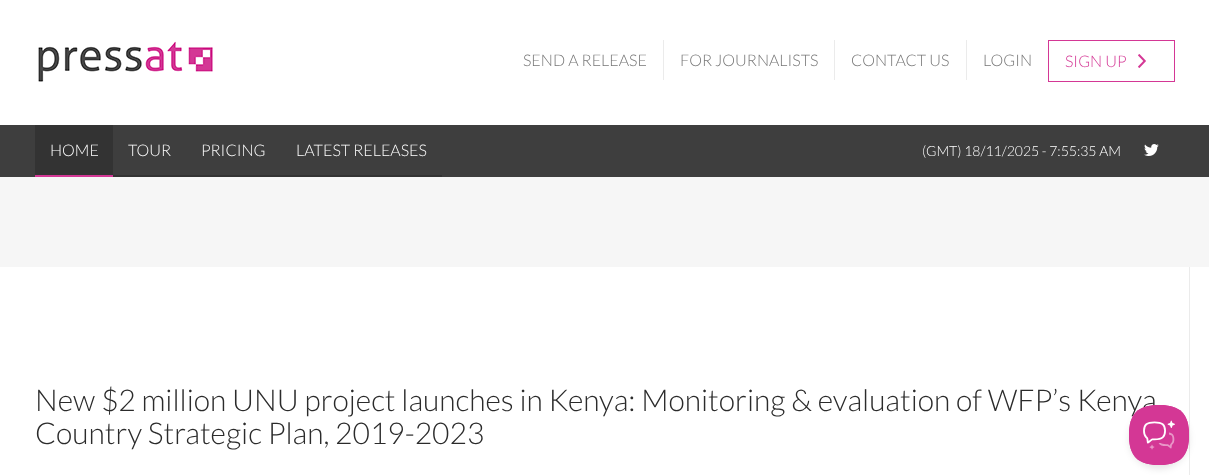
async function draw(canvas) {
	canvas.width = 1209;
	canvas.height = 475;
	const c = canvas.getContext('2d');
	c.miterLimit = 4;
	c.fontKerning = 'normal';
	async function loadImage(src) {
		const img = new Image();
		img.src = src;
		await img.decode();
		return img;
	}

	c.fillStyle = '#fff';
	c.fillRect(0, 0, 1209, 475);
	c.drawImage(await loadImage('img1.png'), 38, 41, 175, 41);
	c.font = '300 16px Lato';
	c.fillStyle = '#777';
	c.fillText('SEND A RELEASE', 523, 66);
	c.fillStyle = '#ebebeb';
	c.fillRect(663, 40, 1, 40);
	c.fillStyle = '#777';
	c.fillText('FOR JOURNALISTS', 680, 66);
	c.fillStyle = '#ebebeb';
	c.fillRect(834, 40, 1, 40);
	c.fillStyle = '#777';
	c.fillText('CONTACT US', 851, 66);
	c.fillStyle = '#ebebeb';
	c.fillRect(966, 40, 1, 40);
	c.fillStyle = '#777';
	c.fillText('LOGIN', 983, 66);
	c.strokeStyle = '#d43795';
	c.strokeRect(1048.5, 40.5, 126, 41);
	c.fillStyle = '#d43795';
	c.fillText('SIGN UP', 1065, 67);
	c.drawImage(await loadImage('img2.png'), 1138, 54, 8, 14);
	for (const [x, y, w, h, color] of [
		[0, 125, 1209, 52, '#3e3e3e'],
		[35, 125, 78, 50, '#333'],
		[35, 175, 78, 2, '#d43795'],
	]) {
		c.fillStyle = color;
		c.fillRect(x, y, w, h);
	}
	c.fillStyle = '#fff';
	c.fillText('HOME', 50, 156);
	c.fillStyle = '#333';
	c.fillRect(113, 175, 329, 2);
	c.fillStyle = '#fff';
	for (const [text, x, y] of [
		['TOUR', 128, 156],
		['PRICING', 201, 156],
		['LATEST RELEASES', 296, 156],
	]) {
		c.fillText(text, x, y);
	}
	c.font = '300 14px Lato';
	c.fillText('(GMT) 18/11/2025 - 7:55:35 AM', 922, 156);
	c.drawImage(await loadImage('img3.png'), 1144, 144, 15, 12);
	c.fillStyle = '#f6f6f6';
	c.fillRect(0, 177, 1209, 90);
	c.fillStyle = '#ebebeb';
	c.fillRect(1189, 267, 1, 208);
	c.font = '300 30px Lato';
	c.fillStyle = '#2b2b2b';
	c.fillText('New $2 million UNU project launches in Kenya: Monitoring & evaluation of WFP’s Kenya', 35, 411);
	c.fillText('Country Strategic Plan, 2019-2023', 35, 444);
	c.fillStyle = '#0000001a';
	c.filter = 'blur(3.5px)';
	c.beginPath();
	c.roundRect(1129, 409, 60, 60, 30);
	c.fill();
	c.filter = 'none';
	c.drawImage(await loadImage('img4.png'), 1129, 405, 60, 60);
}

draw(document.querySelector('canvas'));
